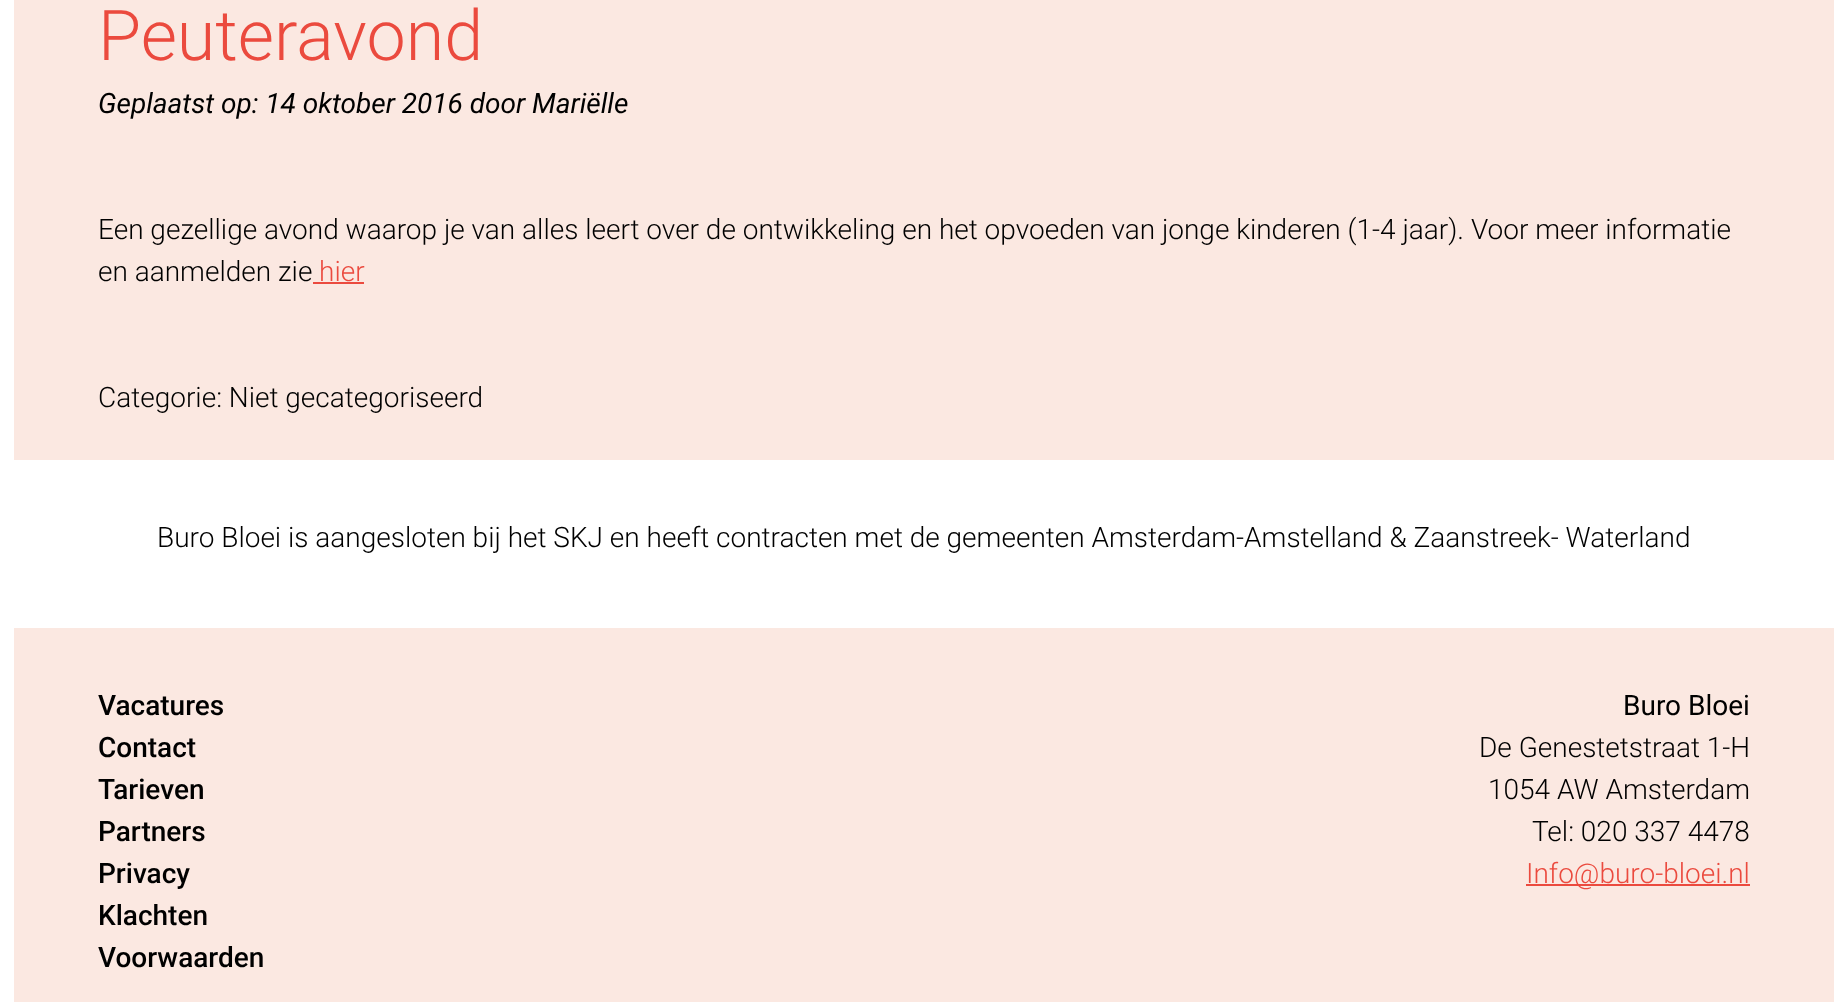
async function draw(canvas) {
	canvas.width = 1847;
	canvas.height = 1002;
	const c = canvas.getContext('2d');
	c.miterLimit = 4;
	c.fontKerning = 'normal';

	c.fillStyle = '#fff';
	c.fillRect(0, 0, 1847, 1002);
	c.fillStyle = '#fbe8e1';
	c.fillRect(14, 0, 1820, 460);
	c.font = '300 70px Roboto';
	c.fillStyle = '#eb4a3e';
	c.fillText('Peuteravond', 98, 60);
	c.font = 'italic 28px Roboto';
	c.fillStyle = '#000';
	c.fillText('Geplaatst op: 14 oktober 2016 door Mariëlle', 98, 113);
	c.font = '300 28px Roboto';
	c.fillText('Een gezellige avond waarop je van alles leert over de ontwikkeling en het opvoeden van jonge kinderen (1-4 jaar). Voor meer informatie', 98, 239);
	c.fillText('en aanmelden zie', 98, 281);
	c.fillStyle = '#eb4a3e';
	c.fillText('hier', 319, 281);
	c.fillRect(313, 282, 51, 2);
	c.fillStyle = '#000';
	c.fillText('Categorie: Niet gecategoriseerd', 98, 407);
	c.fillText('Buro Bloei is aangesloten bij het SKJ en heeft contracten met de gemeenten Amsterdam-Amstelland & Zaanstreek- Waterland', 157, 547);
	c.fillStyle = '#fbe8e1';
	c.fillRect(14, 628, 1820, 374);
	c.font = '500 28px Roboto';
	c.fillStyle = '#000';
	for (const [text, x, y] of [
		['Vacatures', 98, 715],
		['Contact', 98, 757],
		['Tarieven', 98, 799],
		['Partners', 98, 841],
		['Privacy', 98, 883],
		['Klachten', 98, 925],
		['Voorwaarden', 98, 967],
	]) {
		c.fillText(text, x, y);
	}
	c.font = '28px Roboto';
	c.fillText('Buro Bloei', 1623, 715);
	c.font = '300 28px Roboto';
	for (const [text, x, y] of [
		['De Genestetstraat 1-H', 1479, 757],
		['1054 AW Amsterdam', 1488, 799],
		['Tel: 020 337 4478', 1532, 841],
	]) {
		c.fillText(text, x, y);
	}
	c.fillStyle = '#eb4a3e';
	c.fillRect(1526, 884, 224, 2);
	c.fillText('Info@buro-bloei.nl', 1526, 883);
}

draw(document.querySelector('canvas'));
